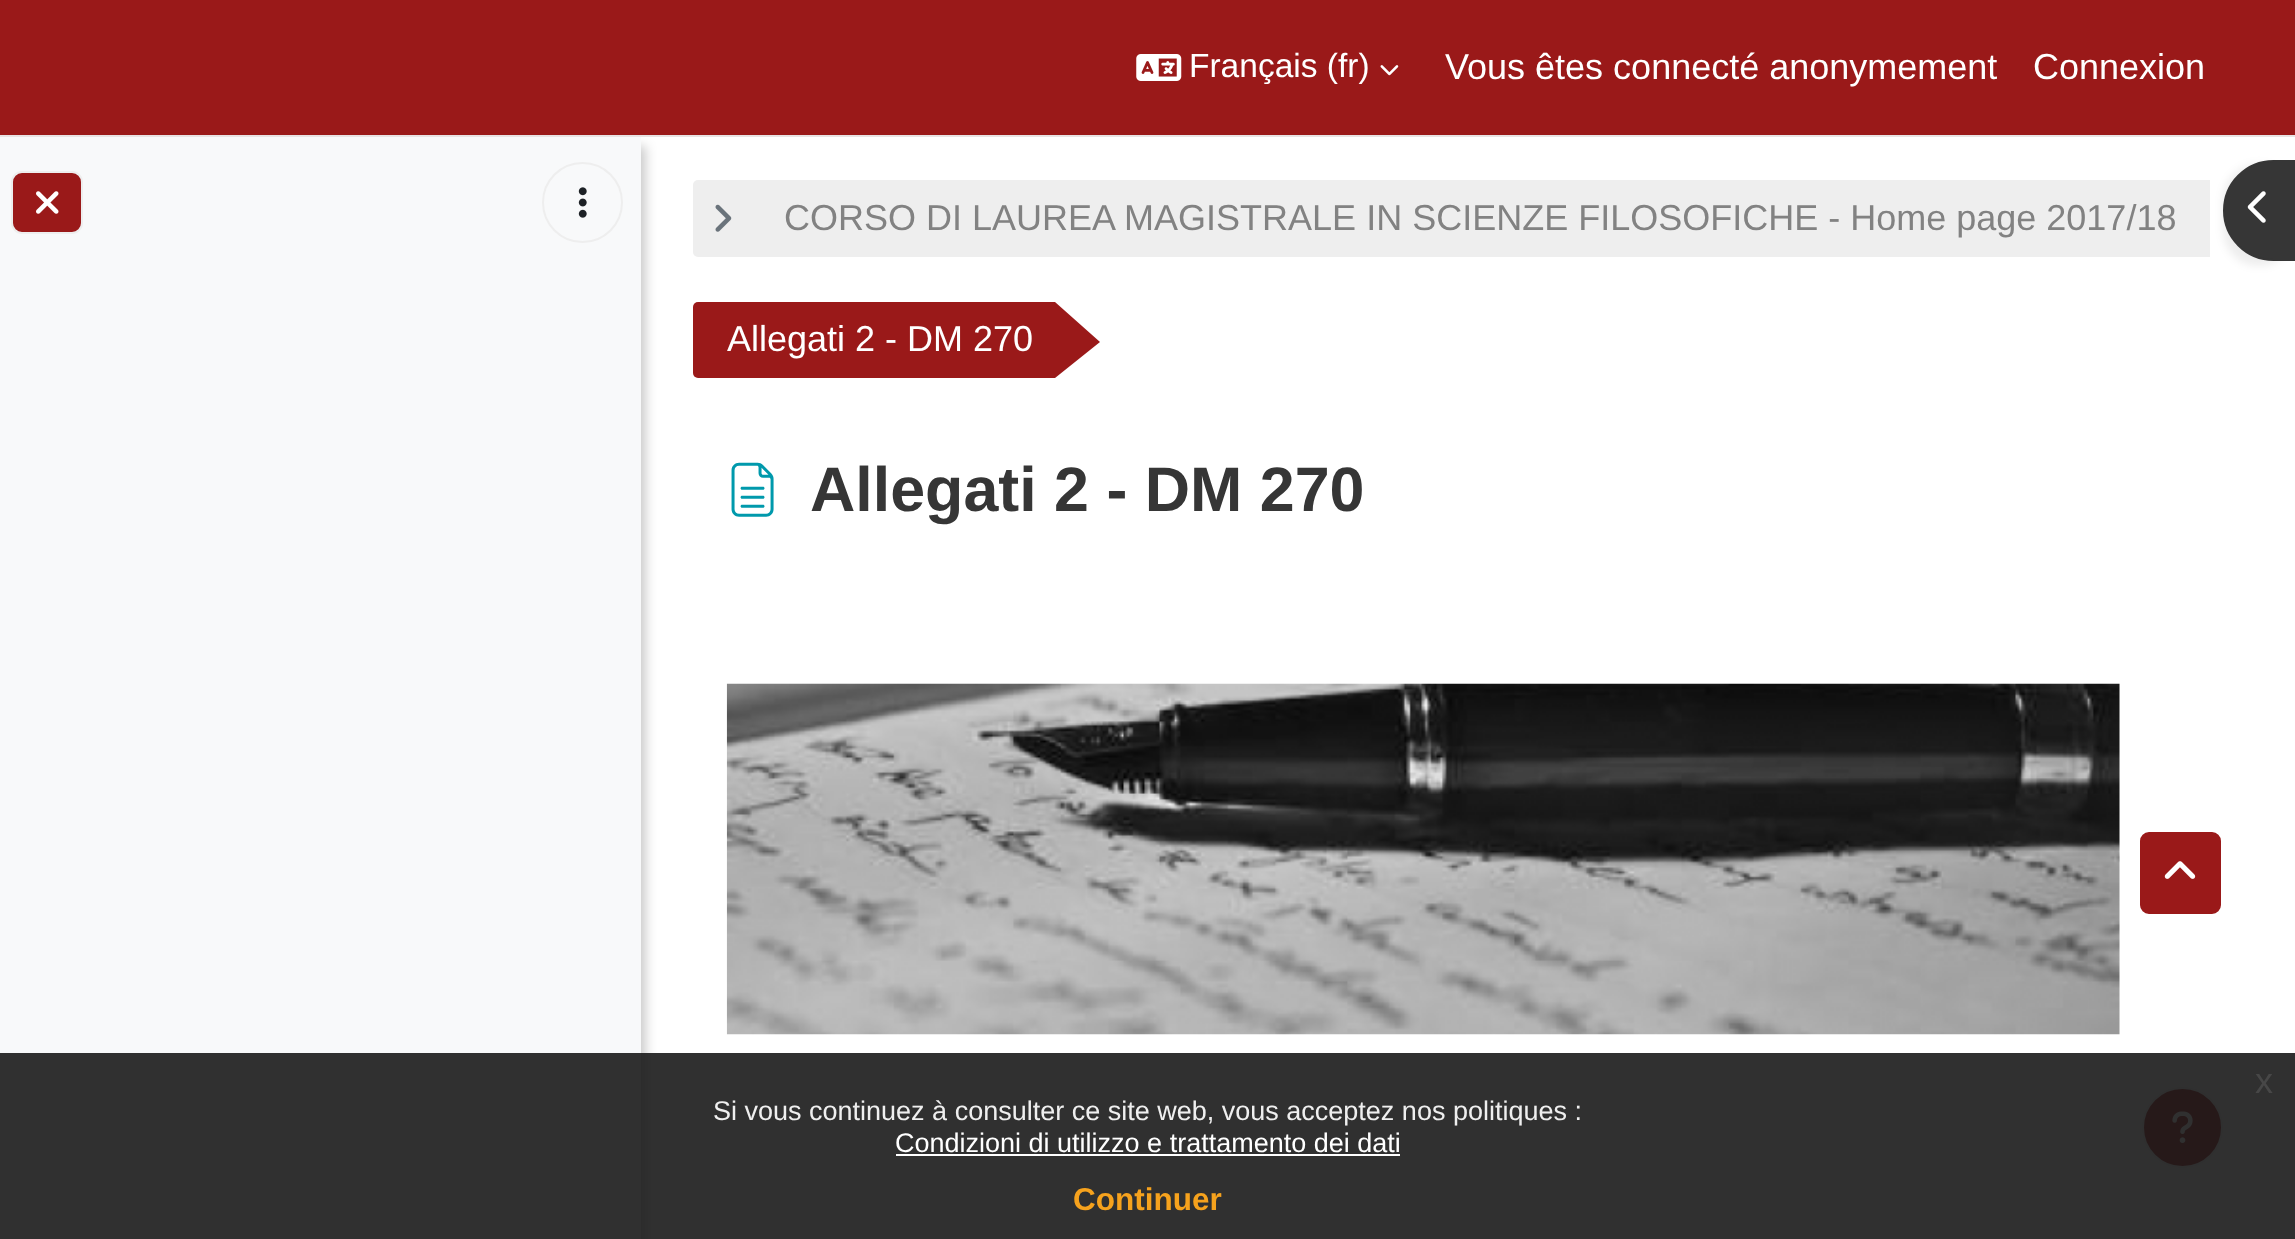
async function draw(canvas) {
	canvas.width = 2295;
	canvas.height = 1239;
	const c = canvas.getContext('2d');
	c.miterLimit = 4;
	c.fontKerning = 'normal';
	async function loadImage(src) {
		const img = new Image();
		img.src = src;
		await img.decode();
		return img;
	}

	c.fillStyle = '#fff';
	c.fillRect(0, 0, 2295, 1239);
	c.fillStyle = '#00000033';
	c.filter = 'blur(5.5px)';
	c.beginPath();
	c.rect(5, 146, 641, 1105);
	c.fill();
	c.filter = 'none';
	c.fillStyle = '#9a1919';
	c.fillRect(0, 0, 2295, 135);
	c.fillStyle = '#e8e3e3';
	c.fillRect(0, 135, 2295, 2);
	c.drawImage(await loadImage('img1.png'), 1136, 54, 46, 27);
	c.font = '33.5px Liberation Sans';
	c.fillStyle = '#fff';
	c.fillText('Français (fr)', 1189, 77);
	c.drawImage(await loadImage('img2.png'), 1380, 65, 19, 11);
	c.font = '36px Liberation Sans';
	c.fillText('Vous êtes connecté anonymement', 1445, 79);
	c.fillText('Connexion', 2033, 79);
	c.fillStyle = '#f8f9fa';
	c.fillRect(0, 137, 641, 1102);
	c.fillStyle = '#9a1919';
	c.beginPath();
	c.roundRect(12, 172, 70, 61, 10);
	c.fill();
	c.strokeStyle = '#eee';
	c.lineWidth = 2;
	c.stroke();
	c.drawImage(await loadImage('img3.png'), 36, 191, 23, 23);
	c.beginPath();
	c.arc(582.5, 202.5, 39.5, 0, 2 * Math.PI);
	c.stroke();
	c.drawImage(await loadImage('img4.png'), 578, 187, 9, 31);
	c.fillStyle = '#eee';
	c.beginPath();
	c.roundRect(693, 180, 1517, 77, [5, 0, 0, 5]);
	c.fill();
	c.drawImage(await loadImage('img5.png'), 715, 204, 17, 28);
	c.fillStyle = '#828282';
	c.fillText('CORSO DI LAUREA MAGISTRALE IN SCIENZE FILOSOFICHE - Home page 2017/18', 784, 230);
	c.fillStyle = '#9a1919';
	c.beginPath();
	c.roundRect(693, 302, 362, 76, [5, 0, 0, 5]);
	c.fill();
	c.fillStyle = '#fff';
	c.fillText('Allegati 2 - DM 270', 727, 351);
	c.fillStyle = '#9a1919';
	c.beginPath();
	c.moveTo(1055, 378);
	c.lineTo(1055, 302);
	c.lineTo(1100, 342);
	c.closePath();
	c.fill();
	c.drawImage(await loadImage('img6.png'), 731, 462, 43, 55);
	c.font = 'bold 62.75px Liberation Sans';
	c.fillStyle = '#363636';
	c.fillText('Allegati 2 - DM 270', 810, 511);
	c.fillStyle = '#00000012';
	c.filter = 'blur(4.5px)';
	c.beginPath();
	c.roundRect(2223, 164, 72, 102, 51);
	c.fill();
	c.filter = 'none';
	c.fillStyle = '#363636';
	c.beginPath();
	c.roundRect(2224, 161, 70, 99, [49.5, 0, 0, 49.5]);
	c.fill();
	c.strokeStyle = '#363636';
	c.stroke();
	c.drawImage(await loadImage('img7.png'), 2247, 191, 19, 32);
	c.drawImage(await loadImage('img8.png'), 726, 683, 1394, 352);
	c.fillStyle = '#9a1919';
	c.beginPath();
	c.roundRect(2139, 831, 83, 84, 10);
	c.fill();
	c.strokeStyle = '#fff';
	c.stroke();
	c.drawImage(await loadImage('img9.png'), 2164, 861, 32, 18);
	c.beginPath();
	c.arc(2182.5, 1127.5, 39.5, 0, 2 * Math.PI);
	c.fill();
	c.strokeStyle = '#eee';
	c.stroke();
	c.drawImage(await loadImage('img10.png'), 2172, 1111, 21, 32);
	c.fillStyle = '#191919e6';
	c.fillRect(0, 1053, 2295, 186);
	c.font = '36px Liberation Sans';
	c.fillStyle = '#474747';
	c.fillText('x', 2255, 1093);
	c.font = '27px Liberation Sans';
	c.fillStyle = '#efefef';
	c.fillText('Si vous continuez à consulter ce site web, vous acceptez nos politiques :', 713, 1120);
	c.fillStyle = '#fff';
	c.fillText('Condizioni di utilizzo e trattamento dei dati', 895, 1152);
	c.fillRect(896, 1154, 504, 2);
	c.font = 'bold 31.5px Liberation Sans';
	c.fillStyle = '#f6a21d';
	c.fillText('Continuer', 1073, 1210);
}

draw(document.querySelector('canvas'));
